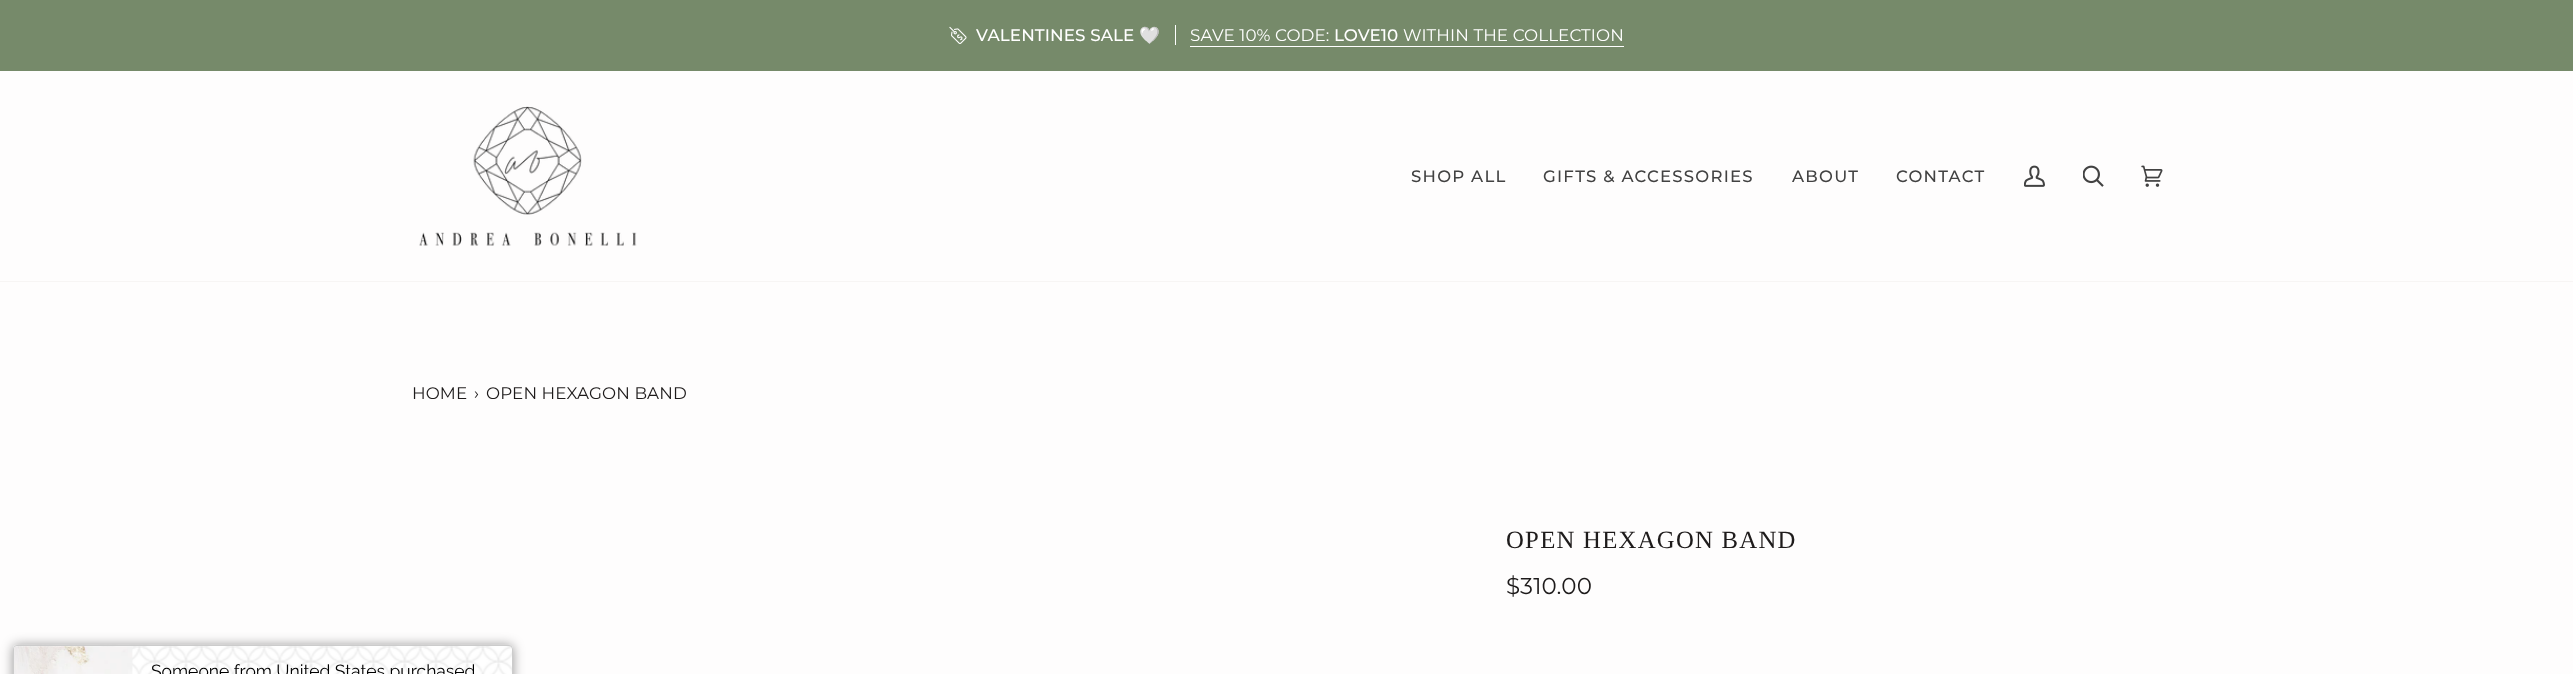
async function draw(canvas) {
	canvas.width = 2573;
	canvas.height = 674;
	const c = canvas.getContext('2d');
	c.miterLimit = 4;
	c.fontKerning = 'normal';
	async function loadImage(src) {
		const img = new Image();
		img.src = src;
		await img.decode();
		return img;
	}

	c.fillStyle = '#fefdfd';
	c.fillRect(0, 0, 2573, 674);
	c.fillStyle = '#768a6a';
	c.fillRect(0, 0, 2573, 71);
	c.drawImage(await loadImage('img1.png'), 949, 26, 18, 18);
	c.letterSpacing = '0.1px';
	c.font = '500 16.75px Montserrat';
	c.fillStyle = '#fff';
	c.fillText('VALENTINES SALE', 976, 41);
	c.font = '16.75px Noto Color Emoji';
	c.fillText('🤍', 1139, 41);
	c.fillRect(1175, 25, 1, 20);
	c.font = '16.75px Montserrat';
	c.fillText('SAVE 10% CODE:', 1190, 41);
	c.font = '500 16.75px Montserrat';
	c.fillText('LOVE10', 1334, 41);
	c.font = '16.75px Montserrat';
	c.fillText('WITHIN THE COLLECTION', 1403, 41);
	c.fillRect(1190, 46, 434, 1);
	c.fillStyle = '#f7f5f4';
	c.fillRect(0, 281, 2573, 1);
	c.drawImage(await loadImage('img2.png'), 419, 106, 218, 140);
	c.letterSpacing = '1.25px';
	c.font = '500 16.5px Montserrat';
	c.fillStyle = '#424242';
	for (const [text, x, y] of [
		['SHOP ALL', 1411, 182],
		['GIFTS & ACCESSORIES', 1543, 182],
		['ABOUT', 1792, 182],
		['CONTACT', 1896, 182],
	]) {
		c.fillText(text, x, y);
	}
	c.drawImage(await loadImage('img3.png'), 2024, 165, 21, 22);
	c.drawImage(await loadImage('img4.png'), 2083, 165, 21, 22);
	c.drawImage(await loadImage('img5.png'), 2141, 165, 22, 22);
	c.letterSpacing = '0.1px';
	c.font = '16.75px Montserrat';
	c.fillStyle = '#1e1b1b';
	for (const [text, x, y] of [
		['HOME', 412, 399],
		['›', 474, 399],
		['OPEN HEXAGON BAND', 486, 399],
	]) {
		c.fillText(text, x, y);
	}
	c.letterSpacing = '1.25px';
	c.font = '24.75px Liberation Serif';
	c.fillText('OPEN HEXAGON BAND', 1506, 548);
	c.letterSpacing = '0.1px';
	c.font = '23px Montserrat';
	c.fillText('$310.00', 1506, 594);
	c.fillStyle = '#00000066';
	c.filter = 'blur(6px)';
	c.beginPath();
	c.roundRect(13, 645, 500, 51, 4);
	c.fill();
	c.filter = 'none';
	c.drawImage(await loadImage('img6.png'), 13, 644, 500, 30);
	c.beginPath();
	c.roundRect(13.5, 645.5, 499, 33, 3.5);
	c.strokeStyle = '#ccc';
	c.stroke();
	c.drawImage(await loadImage('img7.png'), 14, 646, 119, 28);
	c.letterSpacing = '0px';
	c.font = '17.5px Raleway';
	c.fillStyle = '#000';
	c.fillText('Someone from United States purchased', 151, 677);
}

draw(document.querySelector('canvas'));
